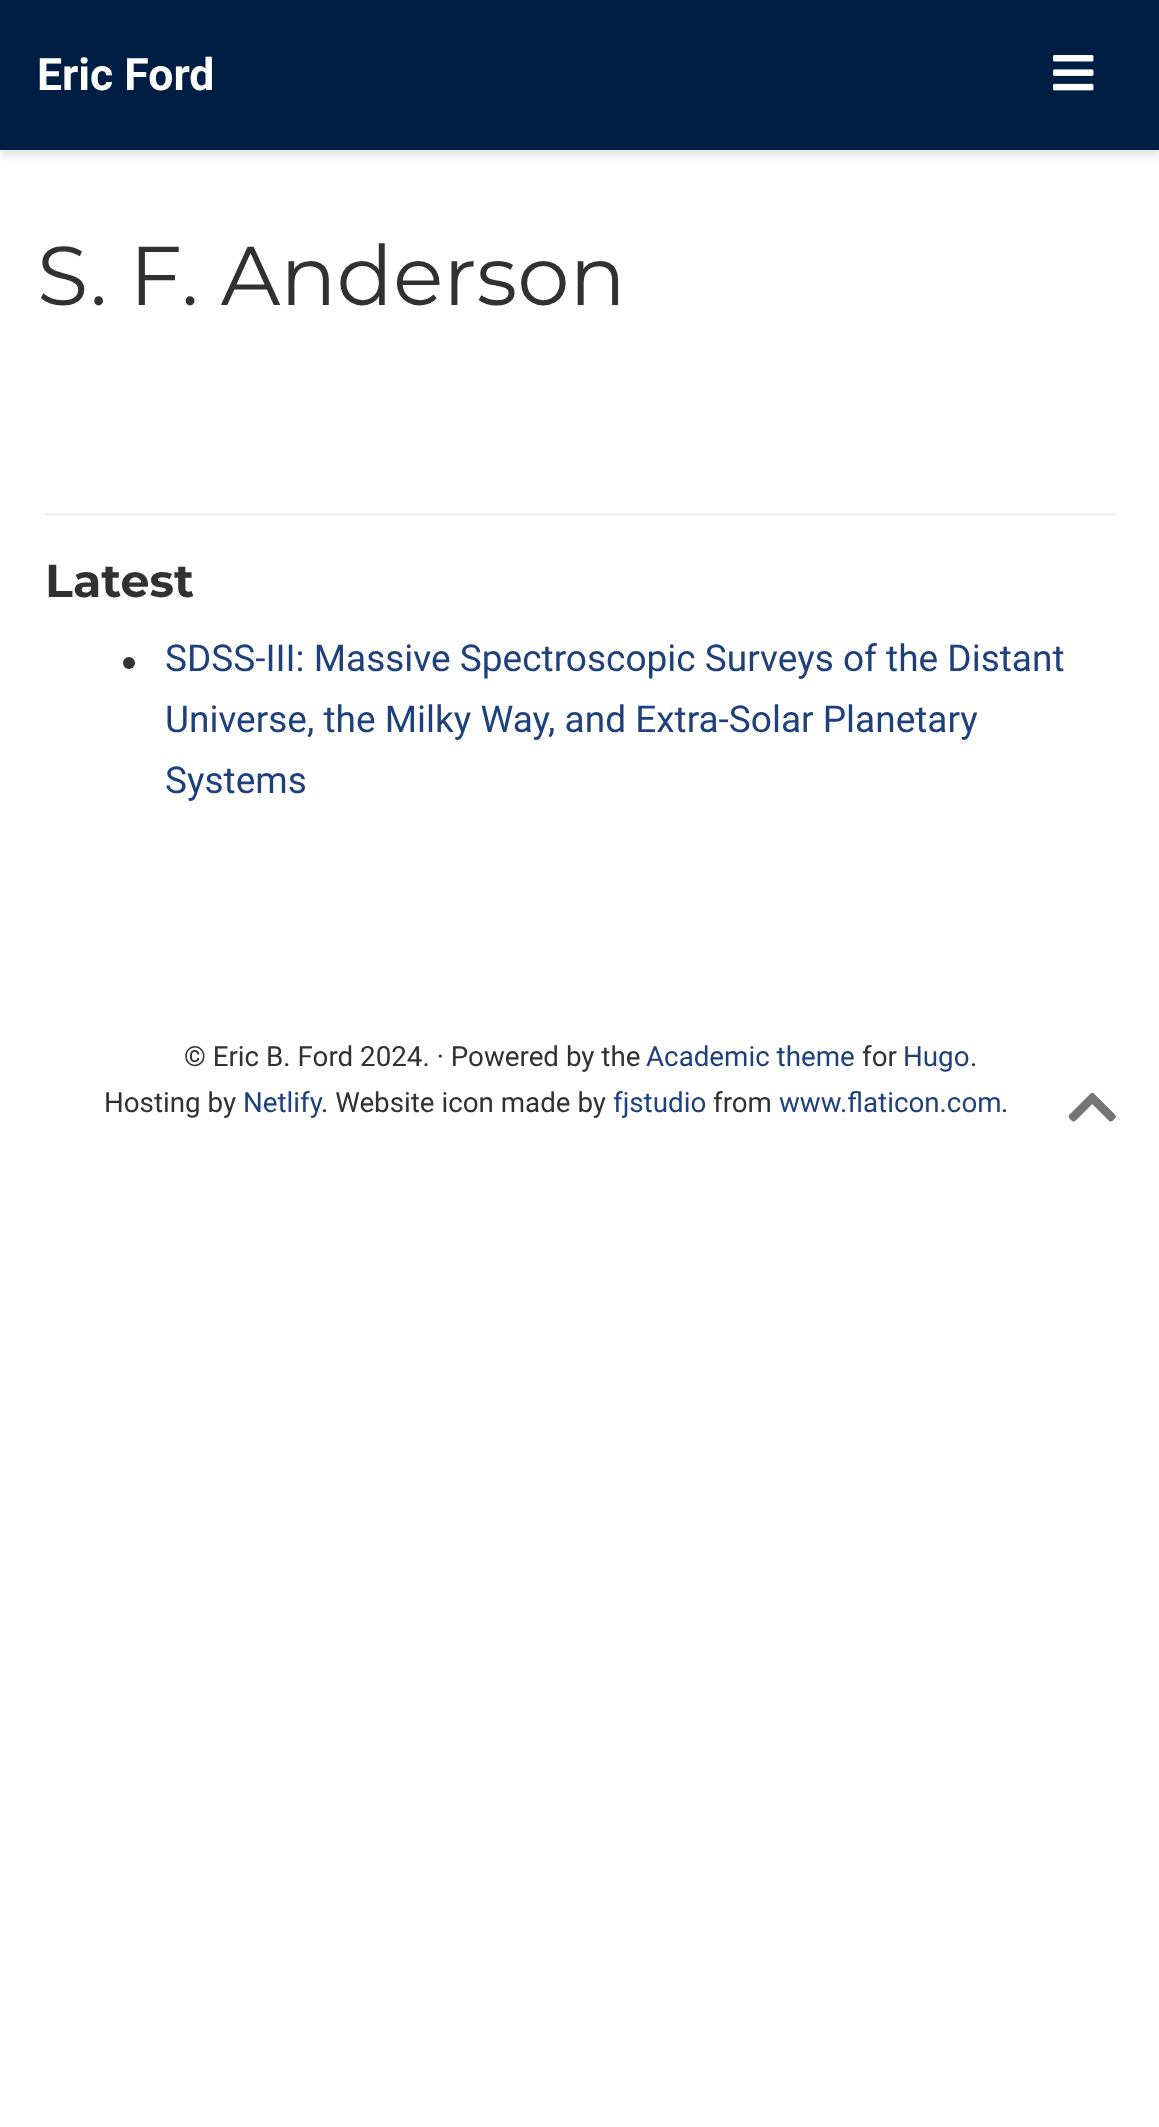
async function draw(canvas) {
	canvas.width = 1159;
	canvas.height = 2127;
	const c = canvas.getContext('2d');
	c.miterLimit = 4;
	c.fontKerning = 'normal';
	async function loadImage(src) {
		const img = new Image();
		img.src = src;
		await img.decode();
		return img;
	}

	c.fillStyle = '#fff';
	c.fillRect(0, 0, 1159, 2127);
	c.fillStyle = '#0000001c';
	c.filter = 'blur(4.5px)';
	c.beginPath();
	c.rect(0, 6, 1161, 150);
	c.fill();
	c.filter = 'none';
	c.fillStyle = '#001e44';
	c.fillRect(0, 0, 1159, 150);
	c.font = 'bold 44.5px Roboto';
	c.fillStyle = '#fff';
	c.fillText('Eric Ford', 37, 90);
	c.drawImage(await loadImage('img1.png'), 1053, 55, 41, 36);
	c.font = '83.25px Montserrat';
	c.fillStyle = '#313131';
	c.fillText('S. F. Anderson', 37, 305);
	c.fillStyle = '#f2f2f2';
	c.fillRect(45, 513, 1071, 3);
	c.font = 'bold 46px Montserrat';
	c.fillStyle = '#313131';
	c.fillText('Latest', 45, 597);
	c.fillStyle = '#333';
	c.beginPath();
	c.arc(129, 663, 6, 0, 2 * Math.PI);
	c.fill();
	c.font = '37px Roboto';
	c.fillStyle = '#1e407c';
	for (const [text, x, y] of [
		['SDSS-III: Massive Spectroscopic Surveys of the Distant', 165, 671],
		['Universe, the Milky Way, and Extra-Solar Planetary', 165, 732],
		['Systems', 165, 793],
	]) {
		c.fillText(text, x, y);
	}
	c.font = '27.75px Roboto';
	c.fillStyle = '#313131';
	c.fillText('© Eric B. Ford 2024. · Powered by the', 184, 1066);
	c.fillStyle = '#1e407c';
	c.fillText('Academic theme', 646, 1066);
	c.fillStyle = '#313131';
	c.fillText('for', 862, 1066);
	c.fillStyle = '#1e407c';
	c.fillText('Hugo', 903, 1066);
	c.fillStyle = '#313131';
	c.fillText('.', 970, 1066);
	c.fillText('Hosting by', 104, 1112);
	c.fillStyle = '#1e407c';
	c.fillText('Netlify', 243, 1112);
	c.fillStyle = '#313131';
	c.fillText('. Website icon made by', 321, 1112);
	c.fillStyle = '#1e407c';
	c.fillText('fjstudio', 613, 1112);
	c.fillStyle = '#313131';
	c.fillText('from', 713, 1112);
	c.fillStyle = '#1e407c';
	c.fillText('www.flaticon.com', 779, 1112);
	c.fillStyle = '#313131';
	c.fillText('.', 1001, 1112);
	c.drawImage(await loadImage('img2.png'), 1068, 1092, 48, 30);
}

draw(document.querySelector('canvas'));
